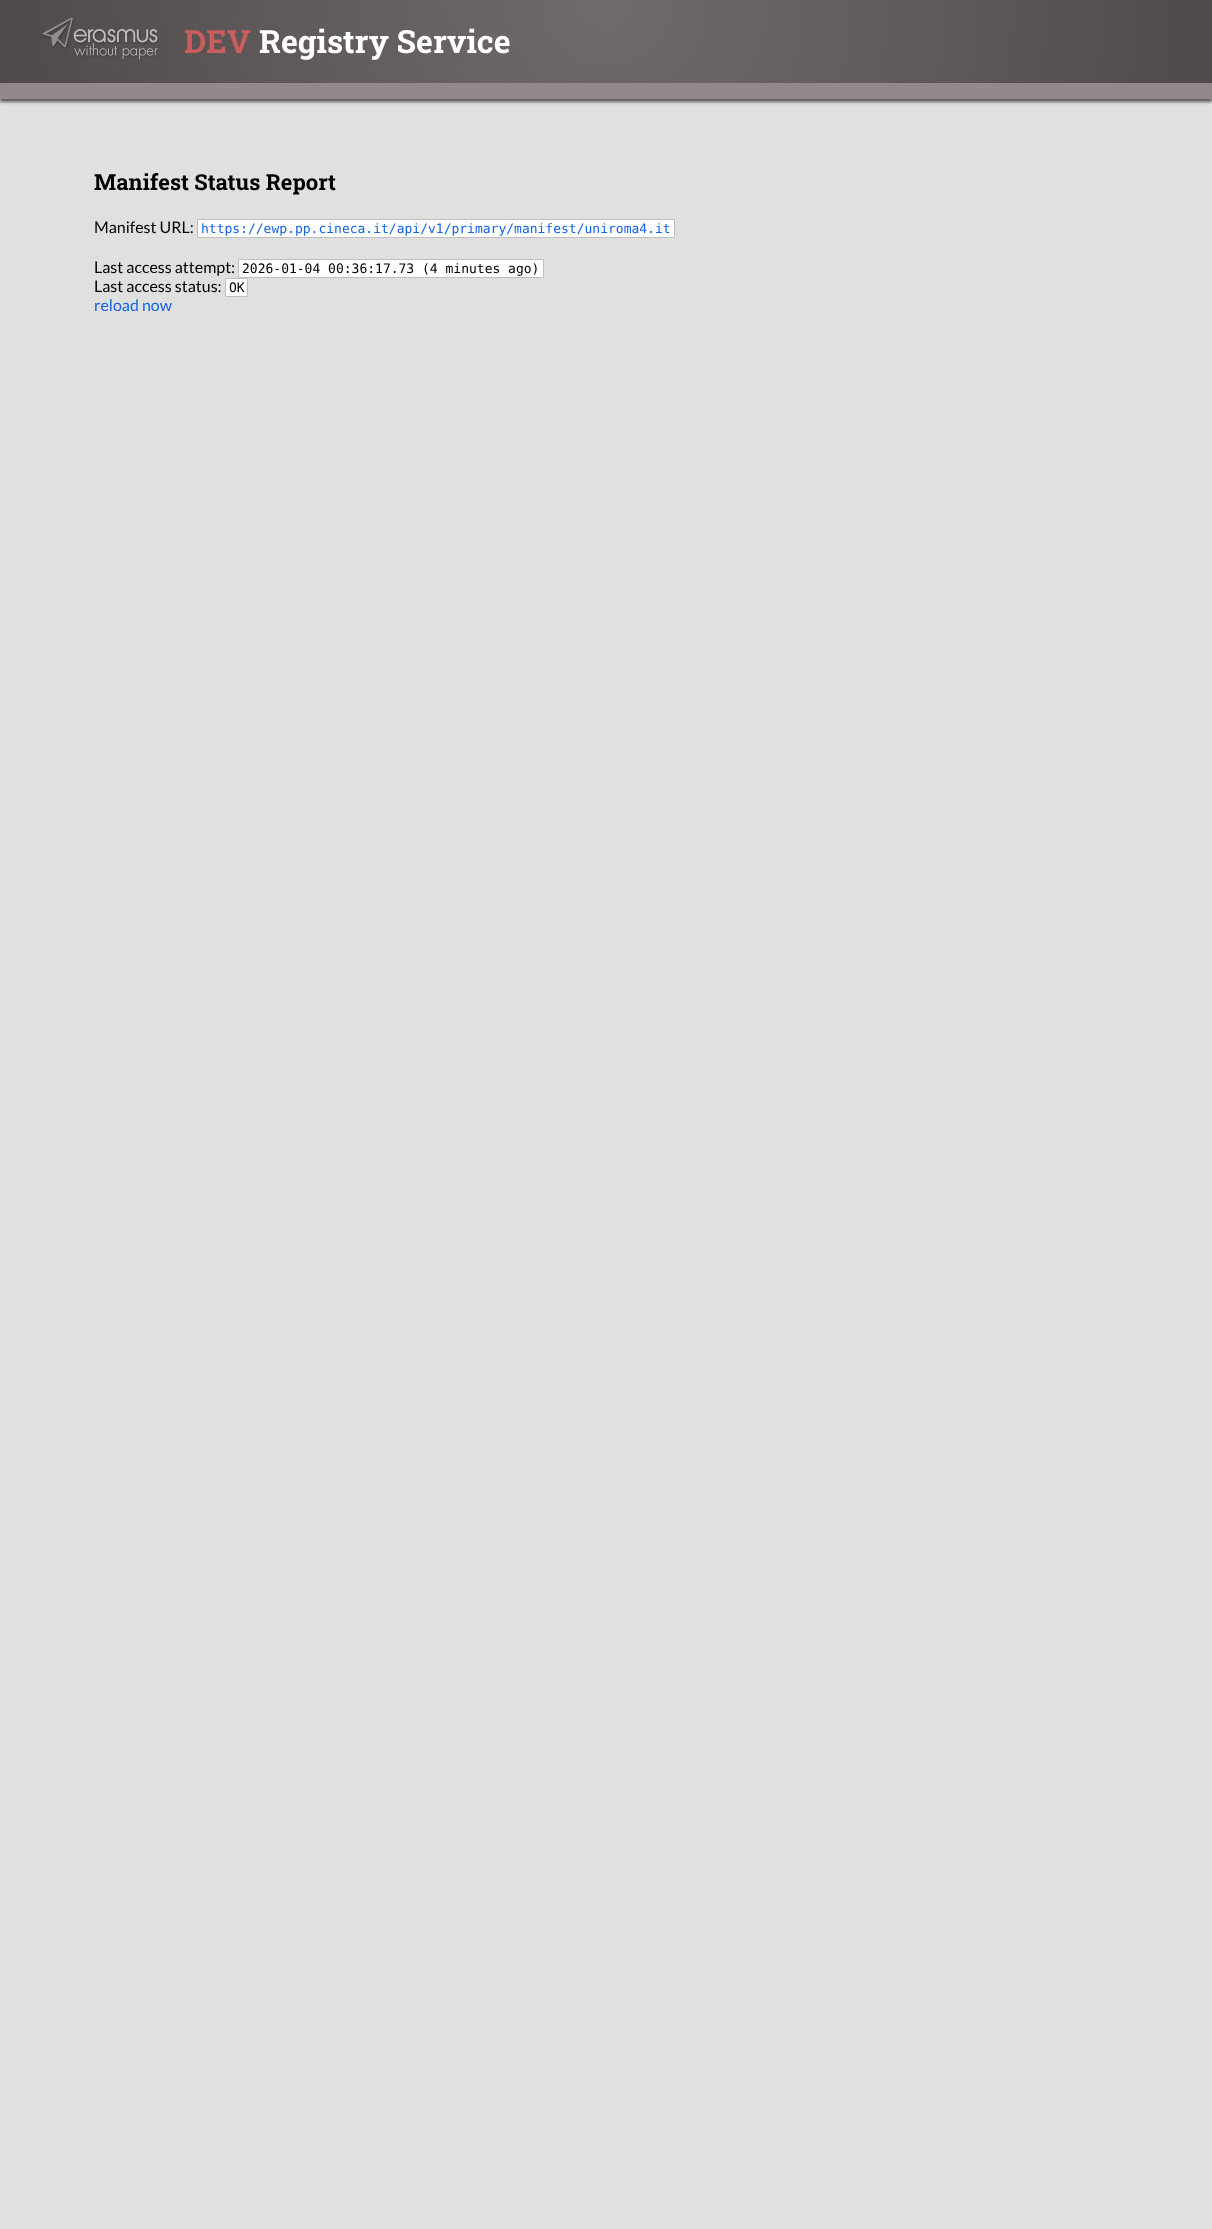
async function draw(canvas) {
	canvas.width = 1212;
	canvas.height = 2229;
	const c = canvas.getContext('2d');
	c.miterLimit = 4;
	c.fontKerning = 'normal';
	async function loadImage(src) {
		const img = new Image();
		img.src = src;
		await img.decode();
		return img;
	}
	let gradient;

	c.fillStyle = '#e0e0e0';
	c.fillRect(0, 0, 1212, 2229);
	gradient = c.createRadialGradient(606, 0, 0, 606, 0, 614);
	gradient.addColorStop(0, '#716a6a');
	gradient.addColorStop(1, '#4f4a4a');
	c.fillStyle = gradient;
	c.fillRect(0, 0, 1212, 83);
	c.drawImage(await loadImage('img1.png'), 43, 17, 116, 44);
	c.font = 'bold 32px Roboto Slab';
	c.fillStyle = '#ca5e5e';
	c.fillText('DEV', 184, 53);
	c.fillStyle = '#fff';
	c.fillText('Registry Service', 259, 53);
	c.fillStyle = '#00000094';
	c.filter = 'blur(1.5px)';
	c.beginPath();
	c.rect(0, 86, 1212, 16);
	c.fill();
	c.filter = 'none';
	c.fillStyle = '#93898c';
	c.fillRect(0, 83, 1212, 16);
	c.font = 'bold 22px Roboto Slab';
	c.fillStyle = '#000';
	c.fillText('Manifest Status Report', 94, 190);
	c.font = '16px Lato';
	c.fillText('Manifest URL:', 94, 233);
	c.fillStyle = '#fff';
	c.beginPath();
	c.rect(197.5, 219.5, 477, 18);
	c.fill();
	c.strokeStyle = '#bfbfbf';
	c.stroke();
	c.font = '13px DejaVu Sans Mono';
	c.fillStyle = '#1464e0';
	c.fillText('https://ewp.pp.cineca.it/api/v1/primary/manifest/uniroma4.it', 201, 233);
	c.font = '16px Lato';
	c.fillStyle = '#000';
	c.fillText('Last access attempt:', 94, 273);
	c.fillStyle = '#fff';
	c.beginPath();
	c.rect(238.5, 259.5, 305, 18);
	c.fill();
	c.stroke();
	c.font = '13px DejaVu Sans Mono';
	c.fillStyle = '#000';
	c.fillText('2026-01-04 00:36:17.73 (4 minutes ago)', 242, 273);
	c.font = '16px Lato';
	c.fillText('Last access status:', 94, 292);
	c.fillStyle = '#fff';
	c.beginPath();
	c.rect(225.5, 278.5, 22, 18);
	c.fill();
	c.stroke();
	c.font = '13px DejaVu Sans Mono';
	c.fillStyle = '#000';
	c.fillText('OK', 229, 292);
	c.font = '16px Lato';
	c.fillStyle = '#1464e0';
	c.fillText('reload now', 94, 311);
}

draw(document.querySelector('canvas'));
